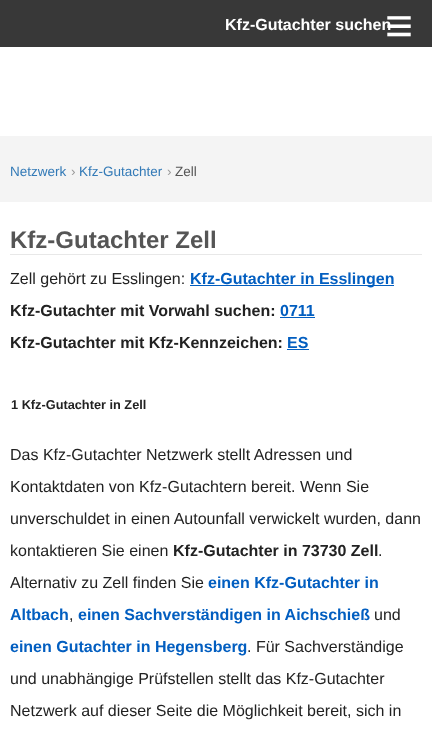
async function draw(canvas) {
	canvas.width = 432;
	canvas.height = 738;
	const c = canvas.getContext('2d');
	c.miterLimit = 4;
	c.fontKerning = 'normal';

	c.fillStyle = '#383838';
	c.fillRect(0, 0, 432, 738);
	c.font = '48px Liberation Sans';
	c.fillStyle = '#fff';
	c.fillText('≡', 385, 42);
	c.font = 'bold 16px Liberation Sans';
	c.fillText('Kfz-Gutachter suchen', 225, 30);
	c.fillRect(0, 47, 432, 691);
	c.fillStyle = '#f4f4f4';
	c.fillRect(0, 136, 432, 66);
	c.font = '13.5px Liberation Sans';
	c.fillStyle = '#337ab7';
	c.fillText('Netzwerk', 10, 176);
	c.fillStyle = '#999';
	c.fillText('›', 71, 176);
	c.fillStyle = '#337ab7';
	c.fillText('Kfz-Gutachter', 79, 176);
	c.fillStyle = '#999';
	c.fillText('›', 167, 176);
	c.fillStyle = '#555';
	c.fillText('Zell', 175, 176);
	c.fillStyle = '#e8e8e8';
	c.fillRect(10, 254, 412, 1);
	c.font = 'bold 24px Liberation Sans';
	c.fillStyle = '#555';
	c.fillText('Kfz-Gutachter Zell', 10, 248);
	c.font = '16px Liberation Sans';
	c.fillStyle = '#222';
	c.fillText('Zell gehört zu Esslingen:', 10, 284);
	c.fillStyle = '#025ec0';
	c.fillRect(190, 285, 204, 1);
	c.font = 'bold 16px Liberation Sans';
	c.fillText('Kfz-Gutachter in Esslingen', 190, 284);
	c.fillStyle = '#222';
	c.fillText('Kfz-Gutachter mit Vorwahl suchen:', 10, 316);
	c.fillStyle = '#025ec0';
	c.fillText('0711', 280, 316);
	c.fillRect(280, 317, 35, 1);
	c.fillStyle = '#222';
	c.fillText('Kfz-Gutachter mit Kfz-Kennzeichen:', 10, 348);
	c.fillStyle = '#025ec0';
	c.fillText('ES', 287, 348);
	c.fillRect(287, 349, 22, 1);
	c.font = 'bold 12.75px Liberation Sans';
	c.fillStyle = '#222';
	c.fillText('1 Kfz-Gutachter in Zell', 11, 409);
	c.font = '16px Liberation Sans';
	for (const [text, x, y] of [
		['Das Kfz-Gutachter Netzwerk stellt Adressen und', 10, 460],
		['Kontaktdaten von Kfz-Gutachtern bereit. Wenn Sie', 10, 492],
		['unverschuldet in einen Autounfall verwickelt wurden, dann', 10, 524],
		['kontaktieren Sie einen', 10, 556],
	]) {
		c.fillText(text, x, y);
	}
	c.font = 'bold 16px Liberation Sans';
	c.fillText('Kfz-Gutachter in 73730 Zell', 173, 556);
	c.font = '16px Liberation Sans';
	c.fillText('.', 378, 556);
	c.fillText('Alternativ zu Zell finden Sie', 10, 588);
	c.font = 'bold 16px Liberation Sans';
	c.fillStyle = '#025ec0';
	c.fillText('einen Kfz-Gutachter in', 208, 588);
	c.fillText('Altbach', 10, 620);
	c.font = '16px Liberation Sans';
	c.fillStyle = '#222';
	c.fillText(',', 69, 620);
	c.font = 'bold 16px Liberation Sans';
	c.fillStyle = '#025ec0';
	c.fillText('einen Sachverständigen in Aichschieß', 78, 620);
	c.font = '16px Liberation Sans';
	c.fillStyle = '#222';
	c.fillText('und', 374, 620);
	c.font = 'bold 16px Liberation Sans';
	c.fillStyle = '#025ec0';
	c.fillText('einen Gutachter in Hegensberg', 10, 652);
	c.font = '16px Liberation Sans';
	c.fillStyle = '#222';
	for (const [text, x, y] of [
		['. Für Sachverständige', 247, 652],
		['und unabhängige Prüfstellen stellt das Kfz-Gutachter', 10, 684],
		['Netzwerk auf dieser Seite die Möglichkeit bereit, sich in', 10, 716],
	]) {
		c.fillText(text, x, y);
	}
}

draw(document.querySelector('canvas'));
